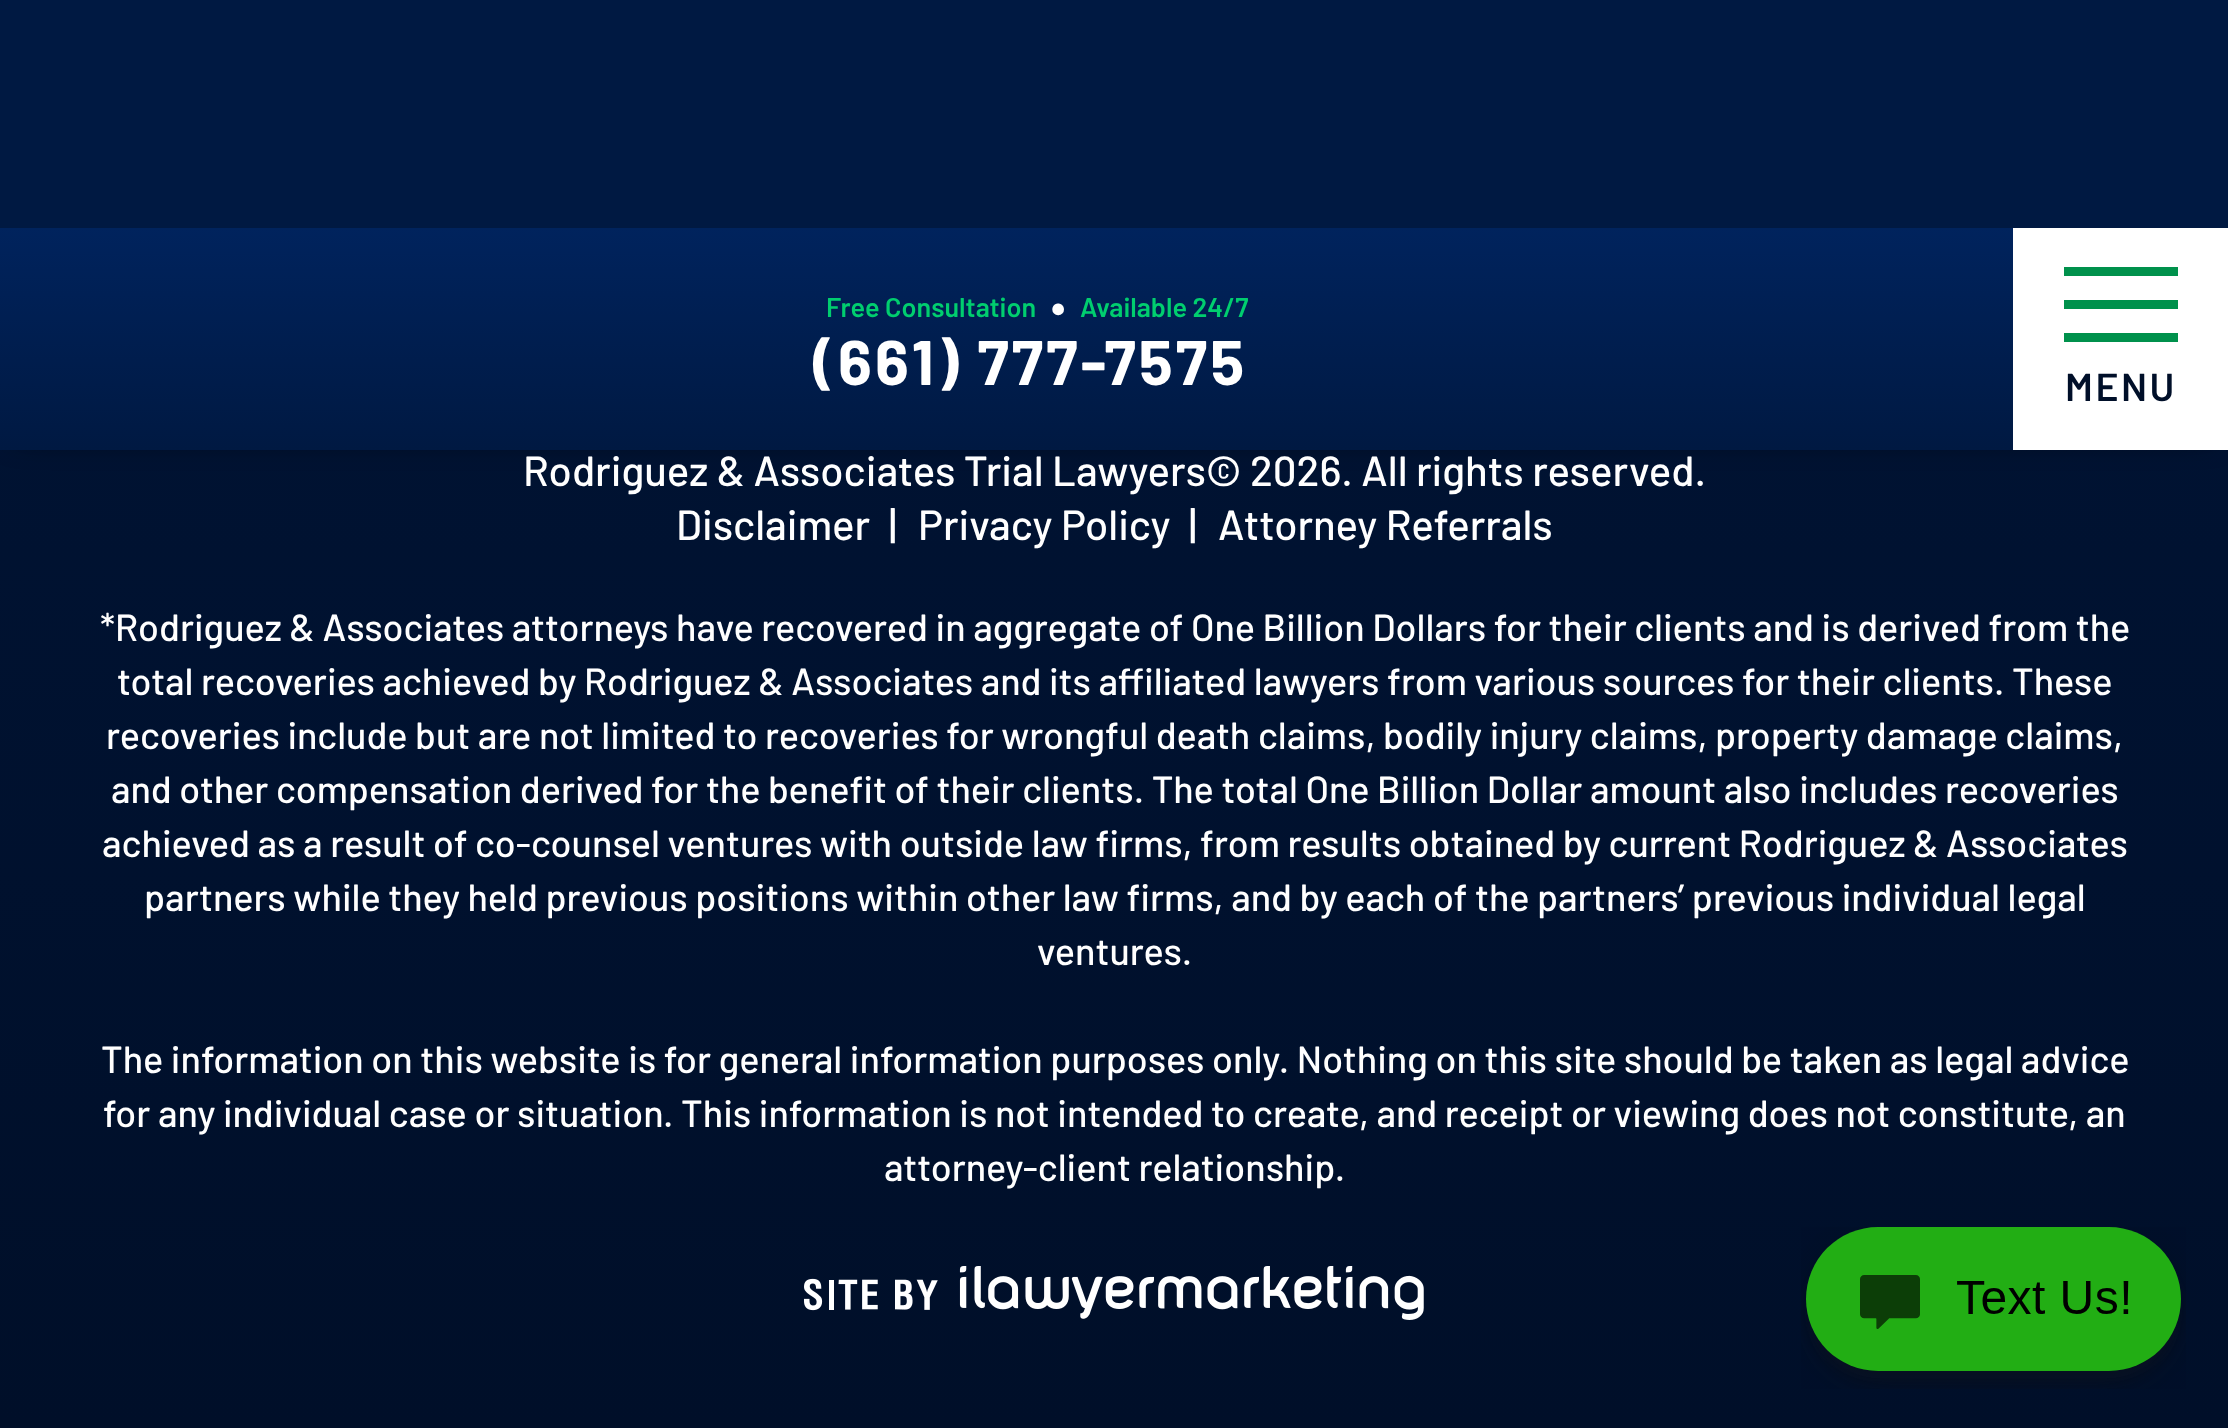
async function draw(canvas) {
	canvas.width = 2228;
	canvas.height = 1428;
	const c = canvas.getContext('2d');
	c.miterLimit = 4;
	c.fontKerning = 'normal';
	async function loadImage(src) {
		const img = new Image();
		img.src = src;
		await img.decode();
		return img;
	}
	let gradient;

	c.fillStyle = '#fff';
	c.fillRect(0, 0, 2228, 1428);
	gradient = c.createLinearGradient(1114, -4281, 1115, 1428);
	gradient.addColorStop(0, '#00235d');
	gradient.addColorStop(1, '#000f29');
	c.fillStyle = gradient;
	c.fillRect(0, 450, 2228, 978);
	c.fillStyle = '#000000cc';
	c.filter = 'blur(15px)';
	c.beginPath();
	c.rect(15, 15, 2199, 420);
	c.fill();
	c.filter = 'none';
	c.fillStyle = '#001942';
	c.fillRect(0, 0, 2228, 228);
	gradient = c.createLinearGradient(1007, 228, 1007, 450);
	gradient.addColorStop(0, '#00235d');
	gradient.addColorStop(1, '#001942');
	c.fillStyle = gradient;
	c.fillRect(0, 228, 2013, 222);
	c.font = '600 27px Barlow';
	c.fillStyle = '#00ce6f';
	c.fillText('Free Consultation', 826, 317);
	c.font = 'bold 27px Liberation Sans';
	c.fillStyle = '#fff';
	c.fillText('●︎', 1050, 317);
	c.font = '600 27px Barlow';
	c.fillStyle = '#00ce6f';
	c.fillText('Available 24/7', 1080, 317);
	c.letterSpacing = '3.1px';
	c.font = 'bold 63px Barlow';
	c.fillStyle = '#fff';
	c.fillText('(661) 777-7575', 813, 385);
	for (const [x, y, w, h, color] of [
		[2013, 228, 215, 222, '#fff'],
		[2064, 267, 114, 9, '#00914c'],
		[2064, 300, 114, 9, '#00914c'],
		[2064, 333, 114, 9, '#00914c'],
	]) {
		c.fillStyle = color;
		c.fillRect(x, y, w, h);
	}
	c.letterSpacing = '2.5px';
	c.font = '600 39px Barlow';
	c.fillStyle = '#000f29';
	c.fillText('MENU', 2065, 401);
	c.letterSpacing = '0px';
	c.font = '500 42px Barlow';
	c.fillStyle = '#fff';
	for (const [text, x, y] of [
		['Rodriguez & Associates Trial Lawyers© 2026. All rights reserved.', 523, 486],
		['Disclaimer', 676, 540],
		['|', 889, 540],
		['Privacy Policy', 918, 540],
		['|', 1189, 540],
		['Attorney Referrals', 1218, 540],
	]) {
		c.fillText(text, x, y);
	}
	c.font = '500 37.8px Barlow';
	for (const [text, x, y] of [
		['*Rodriguez & Associates attorneys have recovered in aggregate of One Billion Dollars for their clients and is derived from the', 100, 641],
		['total recoveries achieved by Rodriguez & Associates and its affiliated lawyers from various sources for their clients. These', 117, 695],
		['recoveries include but are not limited to recoveries for wrongful death claims, bodily injury claims, property damage claims,', 106, 749],
		['and other compensation derived for the benefit of their clients. The total One Billion Dollar amount also includes recoveries', 111, 803],
		['achieved as a result of co-counsel ventures with outside law firms, from results obtained by current Rodriguez & Associates', 102, 857],
		['partners while they held previous positions within other law firms, and by each of the partners’ previous individual legal', 144, 911],
		['ventures.', 1037, 965],
		['The information on this website is for general information purposes only. Nothing on this site should be taken as legal advice', 101, 1073],
		['for any individual case or situation. This information is not intended to create, and receipt or viewing does not constitute, an', 103, 1127],
		['attorney-client relationship.', 884, 1181],
	]) {
		c.fillText(text, x, y);
	}
	c.drawImage(await loadImage('img1.png'), 804, 1266, 620, 54);
	c.drawImage(await loadImage('img2.png'), 1801, 1227, 385, 162);
}

draw(document.querySelector('canvas'));
